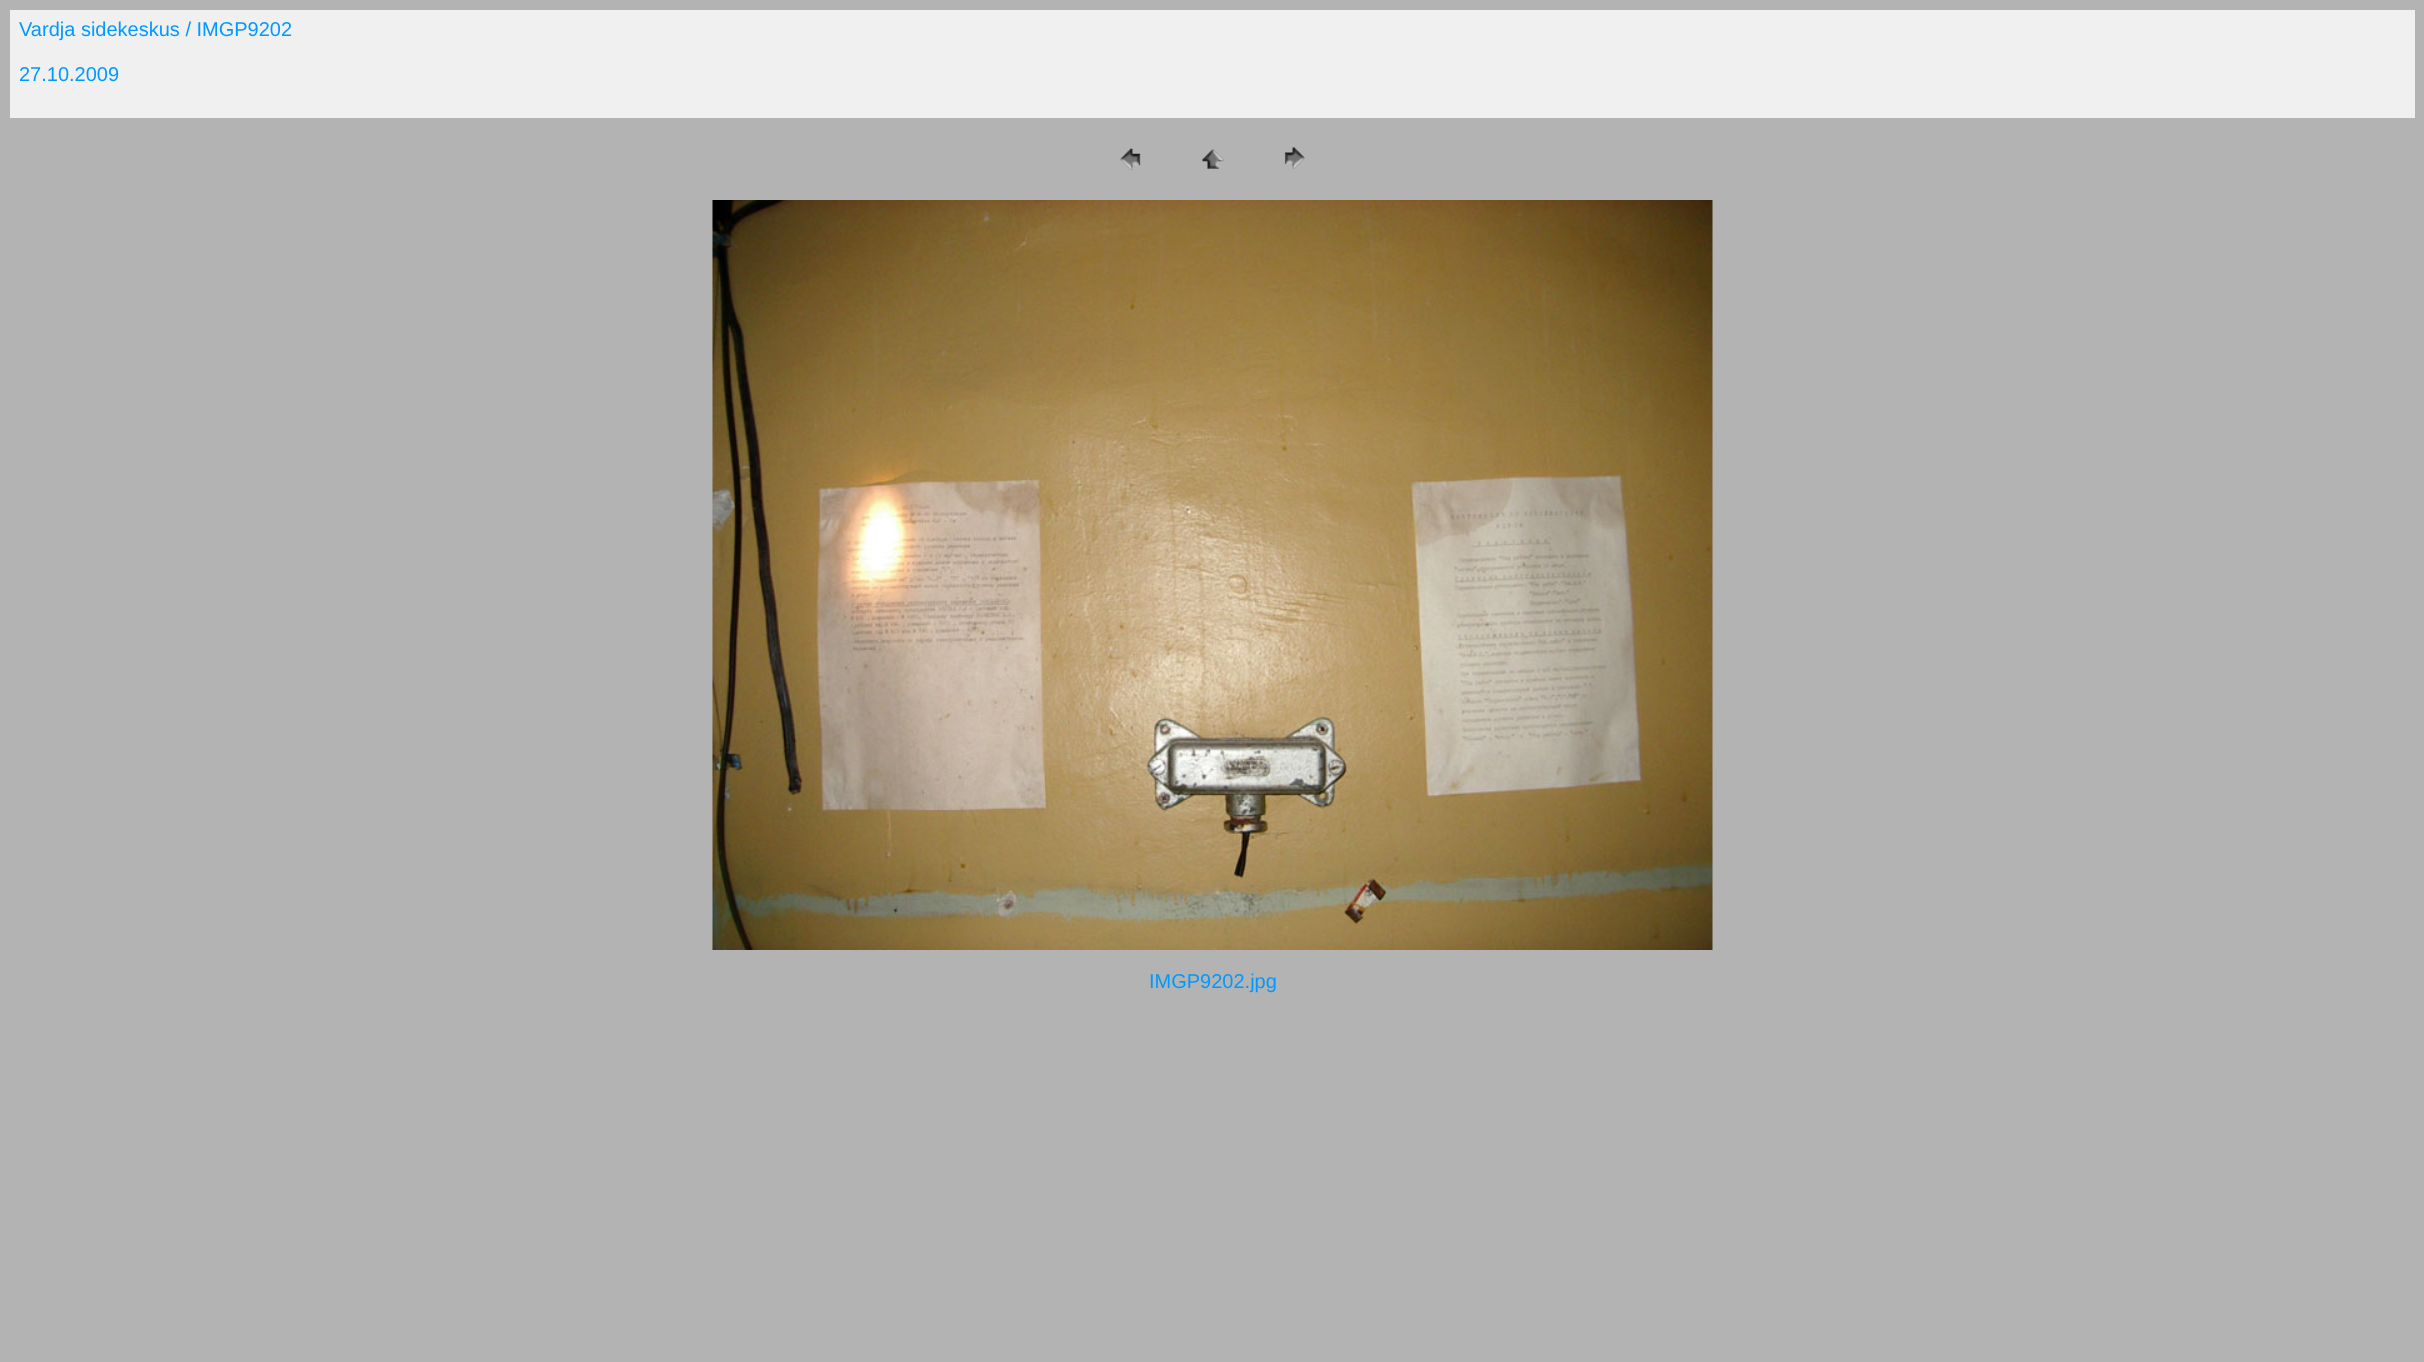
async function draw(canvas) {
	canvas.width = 2424;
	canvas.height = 1362;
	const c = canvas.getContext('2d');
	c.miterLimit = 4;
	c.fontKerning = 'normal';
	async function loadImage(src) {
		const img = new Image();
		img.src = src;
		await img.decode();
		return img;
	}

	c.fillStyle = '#b3b3b3';
	c.fillRect(0, 0, 2424, 1362);
	c.fillStyle = '#f0f0f0';
	c.fillRect(10, 10, 2405, 108);
	c.font = '20px Liberation Sans';
	c.fillStyle = '#09f';
	c.fillText('Vardja sidekeskus / IMGP9202', 19, 36);
	c.fillText('27.10.2009', 19, 81);
	c.drawImage(await loadImage('img1.png'), 1120, 148, 21, 22);
	c.drawImage(await loadImage('img2.png'), 1202, 148, 22, 21);
	c.drawImage(await loadImage('img3.png'), 1284, 147, 21, 22);
	c.drawImage(await loadImage('img4.png'), 712, 200, 1001, 750);
	c.fillText('IMGP9202.jpg', 1149, 988);
}

draw(document.querySelector('canvas'));
